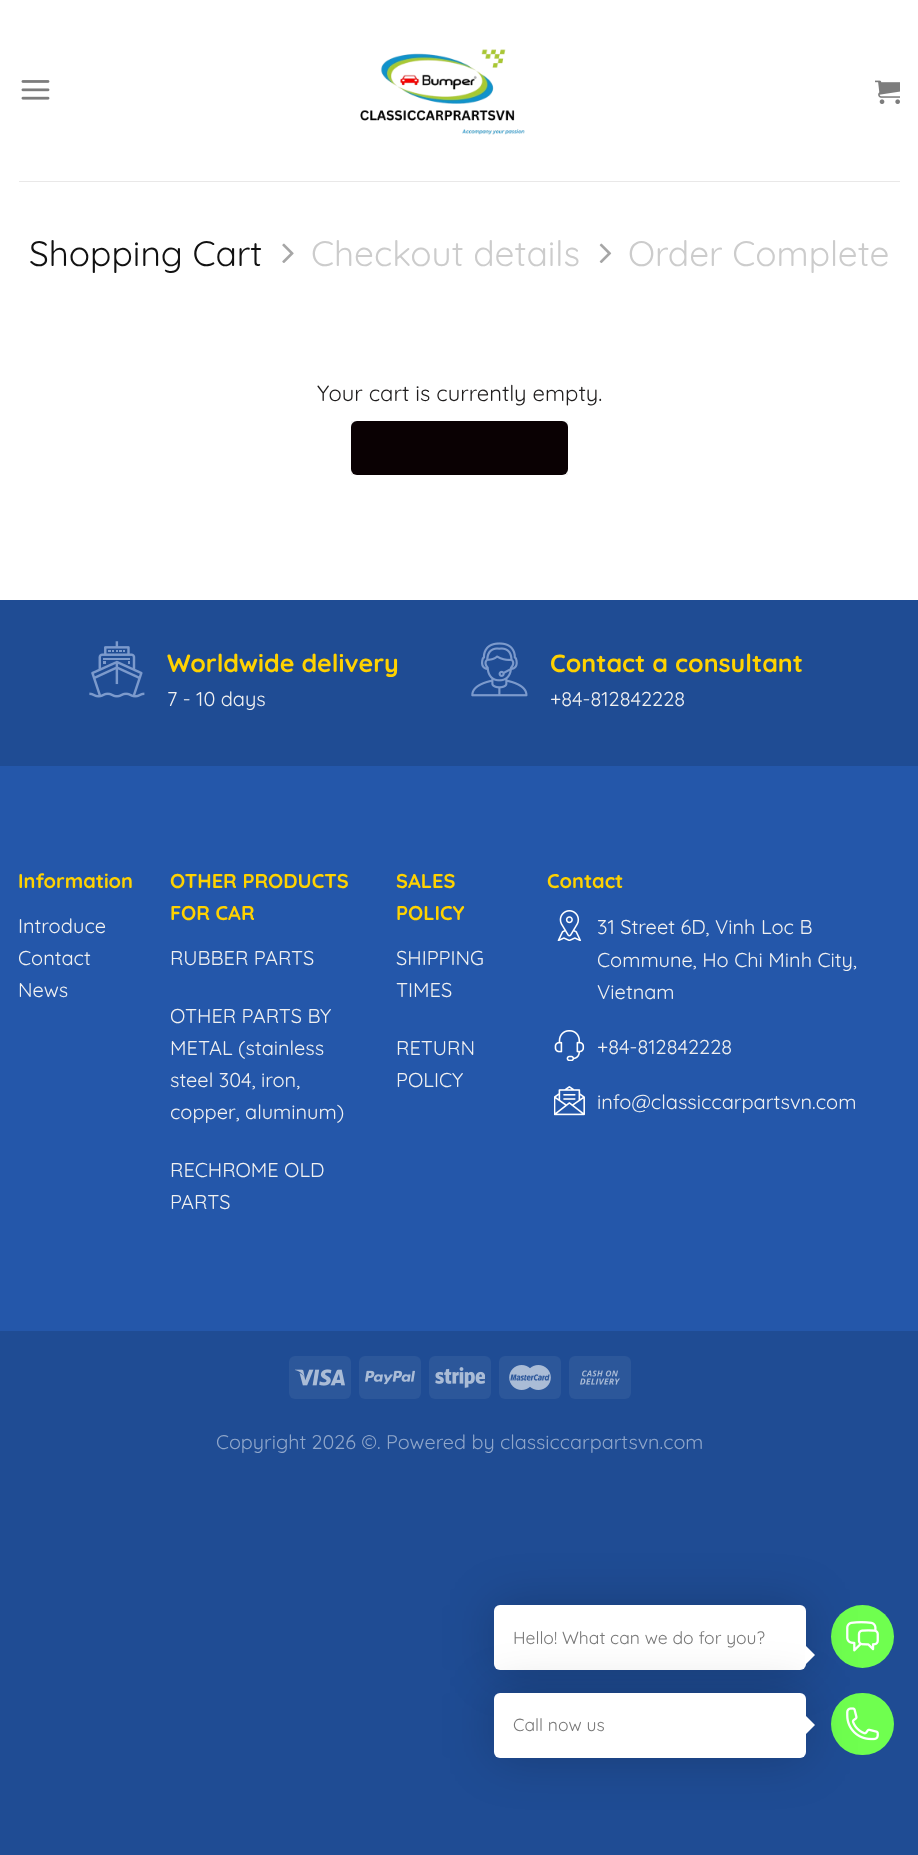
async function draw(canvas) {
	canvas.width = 918;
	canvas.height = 1855;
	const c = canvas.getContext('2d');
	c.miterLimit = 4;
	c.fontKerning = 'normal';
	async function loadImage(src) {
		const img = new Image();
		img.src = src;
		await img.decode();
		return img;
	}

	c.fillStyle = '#1f4c94';
	c.fillRect(0, 0, 918, 1855);
	c.fillStyle = '#fff';
	c.fillRect(0, 0, 918, 600);
	c.drawImage(await loadImage('img1.png'), 21, 80, 29, 20);
	c.drawImage(await loadImage('img2.png'), 360, 49, 165, 86);
	c.drawImage(await loadImage('img3.png'), 875, 80, 25, 24);
	c.fillStyle = '#e9e8e8';
	c.fillRect(19, 181, 881, 1);
	c.font = '35.25px Quicksand';
	c.fillStyle = '#111';
	c.fillText('Shopping Cart', 29, 266);
	c.drawImage(await loadImage('img4.png'), 282, 243, 12, 20);
	c.fillStyle = '#ccc';
	c.fillText('Checkout details', 311, 266);
	c.drawImage(await loadImage('img5.png'), 599, 243, 13, 20);
	c.fillText('Order Complete', 628, 266);
	c.font = '22px Quicksand';
	c.fillStyle = '#1f1d1d';
	c.fillText('Your cart is currently empty.', 317, 401);
	c.fillStyle = '#0a0103';
	c.beginPath();
	c.roundRect(351, 421, 217, 54, 6);
	c.fill();
	c.strokeStyle = '#0000000d';
	c.strokeRect(351.5, 421.5, 216, 53);
	c.drawImage(await loadImage('img6.png'), 89, 641, 56, 57);
	c.font = 'bold 25px Quicksand';
	c.fillStyle = '#ffd200';
	c.fillText('Worldwide delivery', 167, 672);
	c.font = '20px Quicksand';
	c.fillStyle = '#f1f1f1';
	c.fillText('7 - 10 days', 167, 706);
	c.drawImage(await loadImage('img7.png'), 471, 642, 57, 55);
	c.font = 'bold 25px Quicksand';
	c.fillStyle = '#ffd200';
	c.fillText('Contact a consultant', 550, 672);
	c.font = '20px Quicksand';
	c.fillStyle = '#f1f1f1';
	c.fillText('+84-812842228', 550, 706);
	c.fillStyle = '#2457aa';
	c.fillRect(0, 766, 918, 565);
	c.font = 'bold 20px Quicksand';
	c.fillStyle = '#ffd200';
	c.fillText('Information', 18, 888);
	c.font = '20px Quicksand';
	c.fillStyle = '#f1f1f1';
	for (const [text, x, y] of [
		['Introduce', 18, 933],
		['Contact', 18, 965],
		['News', 18, 997],
	]) {
		c.fillText(text, x, y);
	}
	c.font = 'bold 20px Quicksand';
	c.fillStyle = '#ffd200';
	c.fillText('OTHER PRODUCTS', 170, 888);
	c.fillText('FOR CAR', 170, 920);
	c.font = '20px Quicksand';
	c.fillStyle = '#f1f1f1';
	for (const [text, x, y] of [
		['RUBBER PARTS', 170, 965],
		['OTHER PARTS BY', 170, 1023],
		['METAL (stainless', 170, 1055],
		['steel 304, iron,', 170, 1087],
		['copper, aluminum)', 170, 1119],
		['RECHROME OLD', 170, 1177],
		['PARTS', 170, 1209],
	]) {
		c.fillText(text, x, y);
	}
	c.font = 'bold 20px Quicksand';
	c.fillStyle = '#ffd200';
	c.fillText('SALES', 396, 888);
	c.fillText('POLICY', 396, 920);
	c.font = '20px Quicksand';
	c.fillStyle = '#f1f1f1';
	for (const [text, x, y] of [
		['SHIPPING', 396, 965],
		['TIMES', 396, 997],
		['RETURN', 396, 1055],
		['POLICY', 396, 1087],
	]) {
		c.fillText(text, x, y);
	}
	c.font = 'bold 20px Quicksand';
	c.fillStyle = '#ffd200';
	c.fillText('Contact', 547, 888);
	c.drawImage(await loadImage('img8.png'), 557, 910, 25, 31);
	c.font = '20px Quicksand';
	c.fillStyle = '#f1f1f1';
	for (const [text, x, y] of [
		['31 Street 6D, Vinh Loc B', 597, 934],
		['Commune, Ho Chi Minh City,', 597, 967],
		['Vietnam', 597, 999],
	]) {
		c.fillText(text, x, y);
	}
	c.drawImage(await loadImage('img9.png'), 554, 1030, 31, 31);
	c.fillText('+84-812842228', 597, 1054);
	c.drawImage(await loadImage('img10.png'), 554, 1086, 31, 30);
	c.fillText('info@classiccarpartsvn.com', 597, 1109);
	c.fillStyle = '#2c579a';
	c.beginPath();
	c.roundRect(289, 1356, 62, 43, 6);
	c.fill();
	c.drawImage(await loadImage('img11.png'), 295, 1369, 50, 17);
	c.beginPath();
	c.roundRect(359, 1356, 62, 43, 6);
	c.fill();
	c.drawImage(await loadImage('img12.png'), 365, 1370, 50, 15);
	c.beginPath();
	c.roundRect(429, 1356, 62, 43, 6);
	c.fill();
	c.drawImage(await loadImage('img13.png'), 435, 1367, 50, 21);
	c.beginPath();
	c.roundRect(499, 1356, 62, 43, 6);
	c.fill();
	c.drawImage(await loadImage('img14.png'), 509, 1365, 42, 25);
	c.beginPath();
	c.roundRect(569, 1356, 62, 43, 6);
	c.fill();
	c.drawImage(await loadImage('img15.png'), 580, 1370, 40, 15);
	c.font = '19.8px Quicksand';
	c.fillStyle = '#8fa6ca';
	c.fillText('Copyright 2026 ©. Powered by classiccarpartsvn.com', 216, 1449);
	c.fillStyle = '#6fff4f';
	c.beginPath();
	c.arc(862.5, 1636.5, 31.5, 0, 2 * Math.PI);
	c.fill();
	c.drawImage(await loadImage('img16.png'), 846, 1621, 33, 31);
	c.fillStyle = '#00000033';
	c.filter = 'blur(25px)';
	c.beginPath();
	c.roundRect(494, 1605, 312, 65, 6);
	c.fill();
	c.filter = 'none';
	c.fillStyle = '#fff';
	c.beginPath();
	c.roundRect(494, 1605, 312, 65, 6);
	c.fill();
	c.font = '17.5px Quicksand';
	c.fillStyle = '#787878';
	c.fillText('Hello! What can we do for you?', 513, 1644);
	c.fillStyle = '#6fff4f';
	c.beginPath();
	c.roundRect(831, 1693, 63, 62, 31);
	c.fill();
	c.drawImage(await loadImage('img17.png'), 846, 1707, 33, 34);
	c.fillStyle = '#00000033';
	c.filter = 'blur(25px)';
	c.beginPath();
	c.roundRect(494, 1693, 312, 65, 6);
	c.fill();
	c.filter = 'none';
	c.fillStyle = '#fff';
	c.beginPath();
	c.moveTo(805, 1665);
	c.lineTo(805, 1645);
	c.lineTo(815, 1655);
	c.closePath();
	c.fill();
	c.beginPath();
	c.roundRect(494, 1693, 312, 65, 6);
	c.fill();
	c.fillStyle = '#787878';
	c.fillText('Call now us', 513, 1731);
	c.fillStyle = '#fff';
	c.beginPath();
	c.moveTo(805, 1735);
	c.lineTo(805, 1715);
	c.lineTo(815, 1725);
	c.closePath();
	c.fill();
}

draw(document.querySelector('canvas'));
